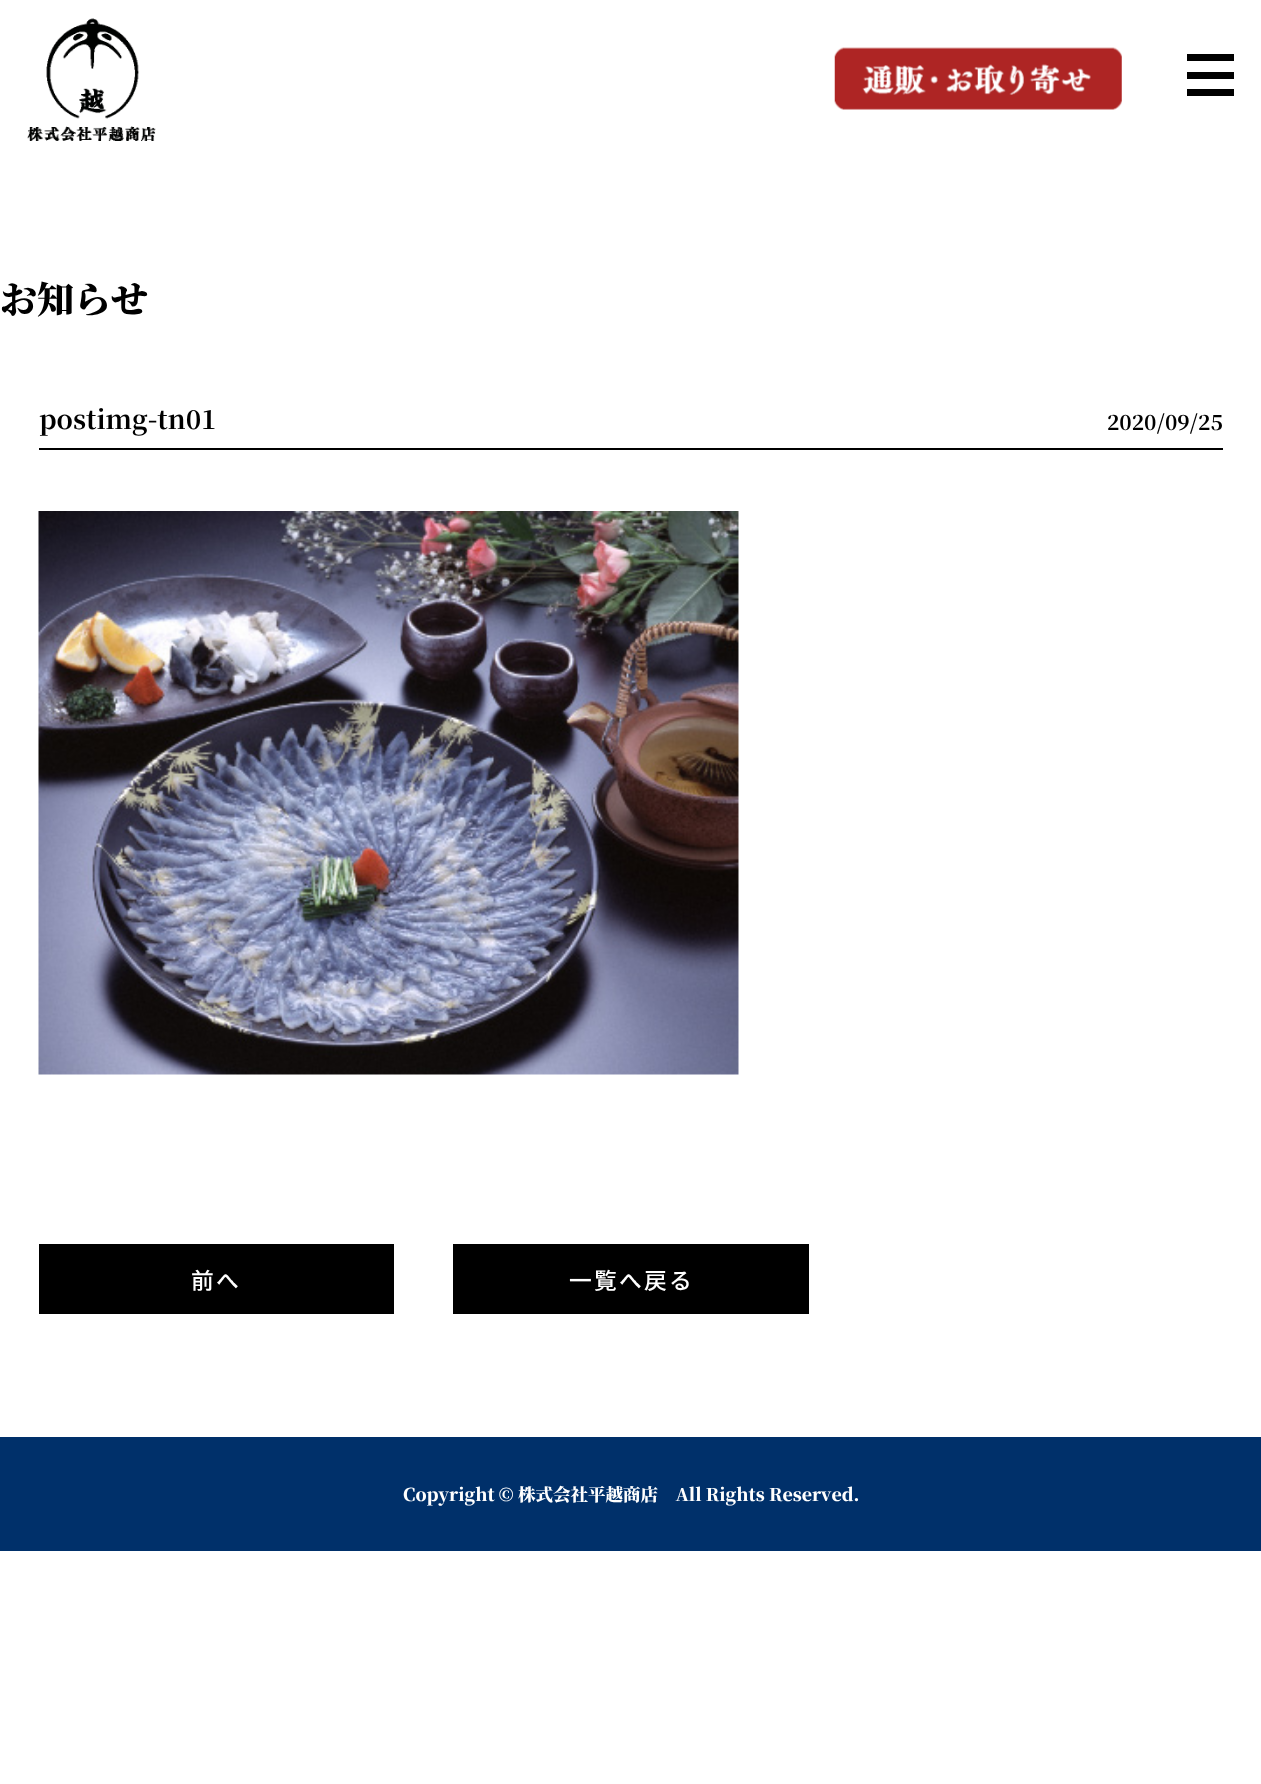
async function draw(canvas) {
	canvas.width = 1261;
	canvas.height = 1784;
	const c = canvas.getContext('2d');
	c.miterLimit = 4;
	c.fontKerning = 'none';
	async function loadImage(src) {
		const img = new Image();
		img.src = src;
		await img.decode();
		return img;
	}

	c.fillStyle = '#fff';
	c.fillRect(0, 0, 1261, 1784);
	c.drawImage(await loadImage('img1.png'), 27, 18, 129, 123);
	c.drawImage(await loadImage('img2.png'), 834, 47, 288, 63);
	for (const [x, y, w, h, color] of [
		[1187, 72, 47, 7, '#000'],
		[1187, 54, 47, 7, '#000'],
		[1187, 89, 47, 7, '#000'],
	]) {
		c.fillStyle = color;
		c.fillRect(x, y, w, h);
	}
	c.font = '900 37px Noto Serif JP';
	c.fillText('お知らせ', 0, 313);
	c.fillRect(39, 448, 1184, 2);
	c.font = 'bold 26.25px Noto Serif JP';
	c.fillText('postimg-tn01', 39, 429);
	c.font = 'bold 21px Noto Serif JP';
	c.fillText('2020/09/25', 1107, 430);
	c.drawImage(await loadImage('img3.png'), 38, 511, 701, 564);
	c.fillRect(39, 1244, 355, 70);
	c.letterSpacing = '2.25px';
	c.font = '500 22.75px Noto Sans JP';
	c.fillStyle = '#fff';
	c.fillText('前へ', 191, 1289);
	c.fillStyle = '#000';
	c.fillRect(453, 1244, 356, 70);
	c.fillStyle = '#fff';
	c.fillText('一覧へ戻る', 569, 1289);
	c.fillStyle = '#00306a';
	c.fillRect(0, 1437, 1261, 114);
	c.letterSpacing = '0px';
	c.font = '900 17.5px Noto Serif JP';
	c.fillStyle = '#fff';
	c.fillText('Copyright © 株式会社平越商店　All Rights Reserved.', 403, 1501);
}

draw(document.querySelector('canvas'));
